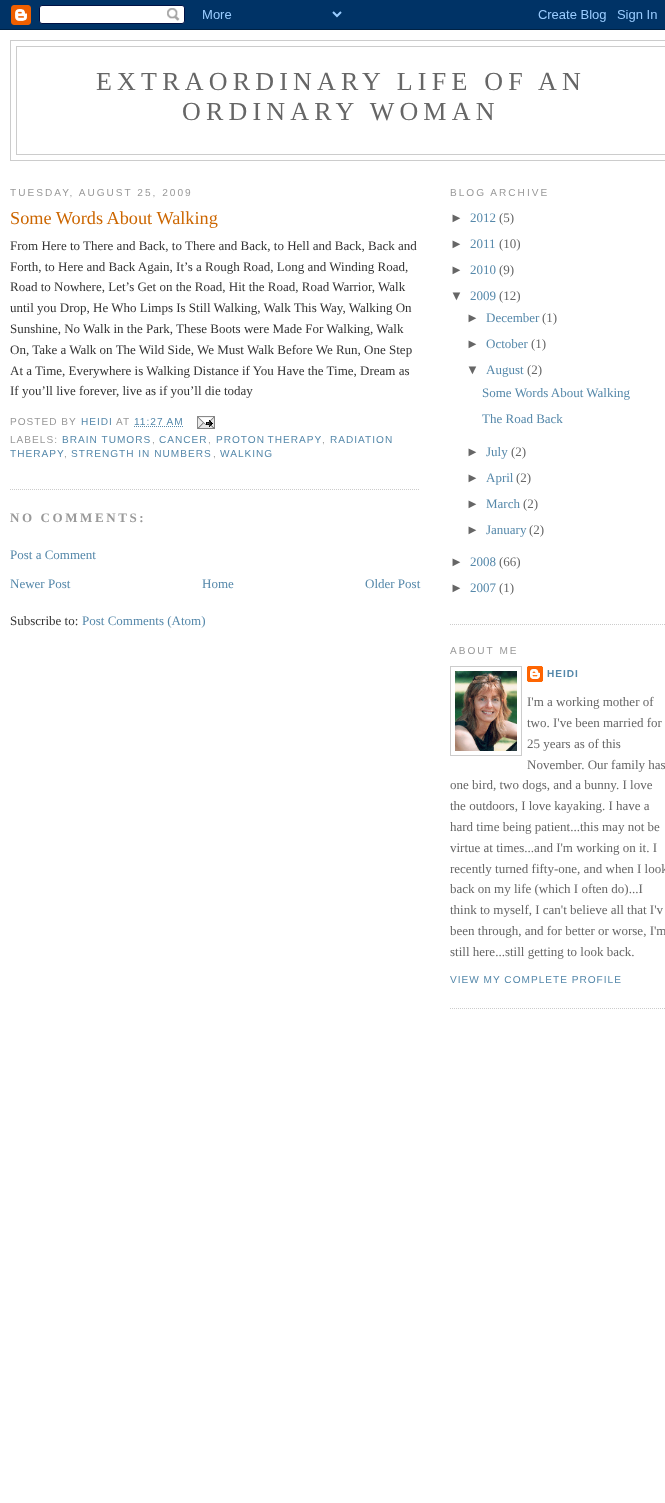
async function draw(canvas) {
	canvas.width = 665;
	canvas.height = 1503;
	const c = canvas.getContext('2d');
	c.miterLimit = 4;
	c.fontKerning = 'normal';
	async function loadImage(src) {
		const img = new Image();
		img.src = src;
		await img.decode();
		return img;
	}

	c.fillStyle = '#fff';
	c.fillRect(0, 0, 665, 1503);
	c.drawImage(await loadImage('img1.png'), 0, 0, 665, 30);
	c.strokeStyle = '#ccc';
	c.strokeRect(10.5, 40.5, 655, 120);
	c.strokeRect(16.5, 46.5, 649, 108);
	c.letterSpacing = '5.2px';
	c.font = '26px Liberation Serif';
	c.fillStyle = '#666';
	c.fillText('EXTRAORDINARY LIFE OF AN', 96, 90);
	c.fillText('ORDINARY WOMAN', 182, 120);
	c.letterSpacing = '2px';
	c.font = '10.1px Liberation Sans';
	c.fillStyle = '#999';
	c.fillText('TUESDAY, AUGUST 25, 2009', 10, 196);
	c.beginPath();
	c.moveTo(10, 489.5);
	c.lineTo(420, 489.5);
	c.setLineDash([1, 1]);
	c.stroke();
	c.letterSpacing = '0px';
	c.font = '18.25px Liberation Serif';
	c.fillStyle = '#c60';
	c.fillText('Some Words About Walking', 10, 224);
	c.font = '13px Liberation Serif';
	c.fillStyle = '#333';
	for (const [text, x, y] of [
		['From Here to There and Back, to There and Back, to Hell and Back, Back and', 10, 250],
		['Forth, to Here and Back Again, It’s a Rough Road, Long and Winding Road,', 10, 271],
		['Road to Nowhere, Let’s Get on the Road, Hit the Road, Road Warrior, Walk', 10, 291],
		['until you Drop, He Who Limps Is Still Walking, Walk This Way, Walking On', 10, 312],
		['Sunshine, No Walk in the Park, These Boots were Made For Walking, Walk', 10, 333],
		['On, Take a Walk on The Wild Side, We Must Walk Before We Run, One Step', 10, 354],
		['At a Time, Everywhere is Walking Distance if You Have the Time, Dream as', 10, 375],
		['If you’ll live forever, live as if you’ll die today', 10, 395],
	]) {
		c.fillText(text, x, y);
	}
	c.letterSpacing = '1px';
	c.font = '10.1px Liberation Sans';
	c.fillStyle = '#999';
	c.fillText('POSTED BY', 10, 425);
	c.fillStyle = '#58a';
	c.fillText('HEIDI', 81, 425);
	c.fillStyle = '#999';
	c.fillText('AT', 116, 425);
	c.fillStyle = '#58a';
	c.fillText('11:27 AM', 134, 425);
	c.beginPath();
	c.moveTo(134, 426.5);
	c.lineTo(184, 426.5);
	c.strokeStyle = '#58a';
	c.stroke();
	c.drawImage(await loadImage('img2.png'), 197, 416, 18, 13);
	c.fillStyle = '#999';
	c.fillText('LABELS:', 10, 443);
	c.fillStyle = '#58a';
	c.fillText('BRAIN TUMORS', 62, 443);
	c.fillStyle = '#999';
	c.fillText(',', 152, 443);
	c.fillStyle = '#58a';
	c.fillText('CANCER', 159, 443);
	c.fillStyle = '#999';
	c.fillText(',', 208, 443);
	c.wordSpacing = '-1px';
	c.fillStyle = '#58a';
	c.fillText('PROTON THERAPY', 216, 443);
	c.wordSpacing = '0px';
	c.fillStyle = '#999';
	c.fillText(',', 322, 443);
	c.fillStyle = '#58a';
	c.fillText('RADIATION', 330, 443);
	c.fillText('THERAPY', 10, 457);
	c.fillStyle = '#999';
	c.fillText(',', 64, 457);
	c.fillStyle = '#58a';
	c.fillText('STRENGTH IN NUMBERS', 71, 457);
	c.fillStyle = '#999';
	c.fillText(',', 213, 457);
	c.fillStyle = '#58a';
	c.fillText('WALKING', 220, 457);
	c.letterSpacing = '2.6px';
	c.font = 'bold 13px Liberation Serif';
	c.fillStyle = '#999';
	c.fillText('NO COMMENTS:', 10, 522);
	c.letterSpacing = '0px';
	c.font = '13px Liberation Serif';
	c.fillStyle = '#58a';
	for (const [text, x, y] of [
		['Post a Comment', 10, 559],
		['Newer Post', 10, 588],
		['Home', 202, 588],
		['Older Post', 365, 588],
	]) {
		c.fillText(text, x, y);
	}
	c.fillStyle = '#333';
	c.fillText('Subscribe to:', 10, 625);
	c.fillStyle = '#58a';
	c.fillText('Post Comments (Atom)', 82, 625);
	c.beginPath();
	c.moveTo(450, 624.5);
	c.lineTo(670, 624.5);
	c.strokeStyle = '#ccc';
	c.stroke();
	c.letterSpacing = '2px';
	c.font = '10.1px Liberation Sans';
	c.fillStyle = '#999';
	c.fillText('BLOG ARCHIVE', 450, 196);
	c.letterSpacing = '0px';
	c.font = '13px Liberation Sans';
	c.fillStyle = '#666';
	c.fillText('►', 450, 222);
	c.font = '13px Liberation Serif';
	c.fillStyle = '#58a';
	c.fillText('2012', 470, 222);
	c.fillStyle = '#666';
	c.fillText('(5)', 499, 222);
	c.font = '13px Liberation Sans';
	c.fillText('►', 450, 248);
	c.font = '13px Liberation Serif';
	c.fillStyle = '#58a';
	c.fillText('2011', 470, 248);
	c.fillStyle = '#666';
	c.fillText('(10)', 499, 248);
	c.font = '13px Liberation Sans';
	c.fillText('►', 450, 274);
	c.font = '13px Liberation Serif';
	c.fillStyle = '#58a';
	c.fillText('2010', 470, 274);
	c.fillStyle = '#666';
	c.fillText('(9)', 499, 274);
	c.font = '13px Liberation Sans';
	c.fillText('▼', 450, 300);
	c.font = '13px Liberation Serif';
	c.fillStyle = '#58a';
	c.fillText('2009', 470, 300);
	c.fillStyle = '#666';
	c.fillText('(12)', 499, 300);
	c.font = '13px Liberation Sans';
	c.fillText('►', 466, 322);
	c.font = '13px Liberation Serif';
	c.fillStyle = '#58a';
	c.fillText('December', 486, 322);
	c.fillStyle = '#666';
	c.fillText('(1)', 542, 322);
	c.font = '13px Liberation Sans';
	c.fillText('►', 466, 348);
	c.font = '13px Liberation Serif';
	c.fillStyle = '#58a';
	c.fillText('October', 486, 348);
	c.fillStyle = '#666';
	c.fillText('(1)', 531, 348);
	c.font = '13px Liberation Sans';
	c.fillText('▼', 466, 374);
	c.font = '13px Liberation Serif';
	c.fillStyle = '#58a';
	c.fillText('August', 486, 374);
	c.fillStyle = '#666';
	c.fillText('(2)', 527, 374);
	c.fillStyle = '#58a';
	c.fillText('Some Words About Walking', 482, 397);
	c.fillText('The Road Back', 482, 423);
	c.font = '13px Liberation Sans';
	c.fillStyle = '#666';
	c.fillText('►', 466, 456);
	c.font = '13px Liberation Serif';
	c.fillStyle = '#58a';
	c.fillText('July', 486, 456);
	c.fillStyle = '#666';
	c.fillText('(2)', 511, 456);
	c.font = '13px Liberation Sans';
	c.fillText('►', 466, 482);
	c.font = '13px Liberation Serif';
	c.fillStyle = '#58a';
	c.fillText('April', 486, 482);
	c.fillStyle = '#666';
	c.fillText('(2)', 516, 482);
	c.font = '13px Liberation Sans';
	c.fillText('►', 466, 508);
	c.font = '13px Liberation Serif';
	c.fillStyle = '#58a';
	c.fillText('March', 486, 508);
	c.fillStyle = '#666';
	c.fillText('(2)', 523, 508);
	c.font = '13px Liberation Sans';
	c.fillText('►', 466, 534);
	c.font = '13px Liberation Serif';
	c.fillStyle = '#58a';
	c.fillText('January', 486, 534);
	c.fillStyle = '#666';
	c.fillText('(2)', 529, 534);
	c.font = '13px Liberation Sans';
	c.fillText('►', 450, 566);
	c.font = '13px Liberation Serif';
	c.fillStyle = '#58a';
	c.fillText('2008', 470, 566);
	c.fillStyle = '#666';
	c.fillText('(66)', 499, 566);
	c.font = '13px Liberation Sans';
	c.fillText('►', 450, 592);
	c.font = '13px Liberation Serif';
	c.fillStyle = '#58a';
	c.fillText('2007', 470, 592);
	c.fillStyle = '#666';
	c.fillText('(1)', 499, 592);
	c.beginPath();
	c.moveTo(450, 1008.5);
	c.lineTo(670, 1008.5);
	c.stroke();
	c.letterSpacing = '2px';
	c.font = '10.1px Liberation Sans';
	c.fillStyle = '#999';
	c.fillText('ABOUT ME', 450, 654);
	c.setLineDash([]);
	c.strokeRect(450.5, 666.5, 71, 89);
	c.drawImage(await loadImage('img3.png'), 455, 671, 62, 80);
	c.drawImage(await loadImage('img4.png'), 527, 666, 16, 16);
	c.letterSpacing = '1px';
	c.font = 'bold 10.1px Liberation Sans';
	c.fillStyle = '#58a';
	c.fillText('HEIDI', 547, 677);
	c.letterSpacing = '0px';
	c.font = '13px Liberation Serif';
	c.fillStyle = '#666';
	for (const [text, x, y] of [
		['I\'m a working mother of', 527, 706],
		['two. I\'ve been married for', 527, 727],
		['25 years as of this', 527, 748],
		['November. Our family has', 527, 769],
		['one bird, two dogs, and a bunny. I love', 450, 789],
		['the outdoors, I love kayaking. I have a', 450, 810],
		['hard time being patient...this may not be', 450, 831],
		['virtue at times...and I\'m working on it. I', 450, 852],
		['recently turned fifty-one, and when I look', 450, 873],
		['back on my life (which I often do)...I', 450, 893],
		['think to myself, I can\'t believe all that I\'v', 450, 914],
		['been through, and for better or worse, I\'m', 450, 935],
		['still here...still getting to look back.', 450, 956],
	]) {
		c.fillText(text, x, y);
	}
	c.letterSpacing = '1px';
	c.font = '10.1px Liberation Sans';
	c.fillStyle = '#58a';
	c.fillText('VIEW MY COMPLETE PROFILE', 450, 983);
}

draw(document.querySelector('canvas'));
